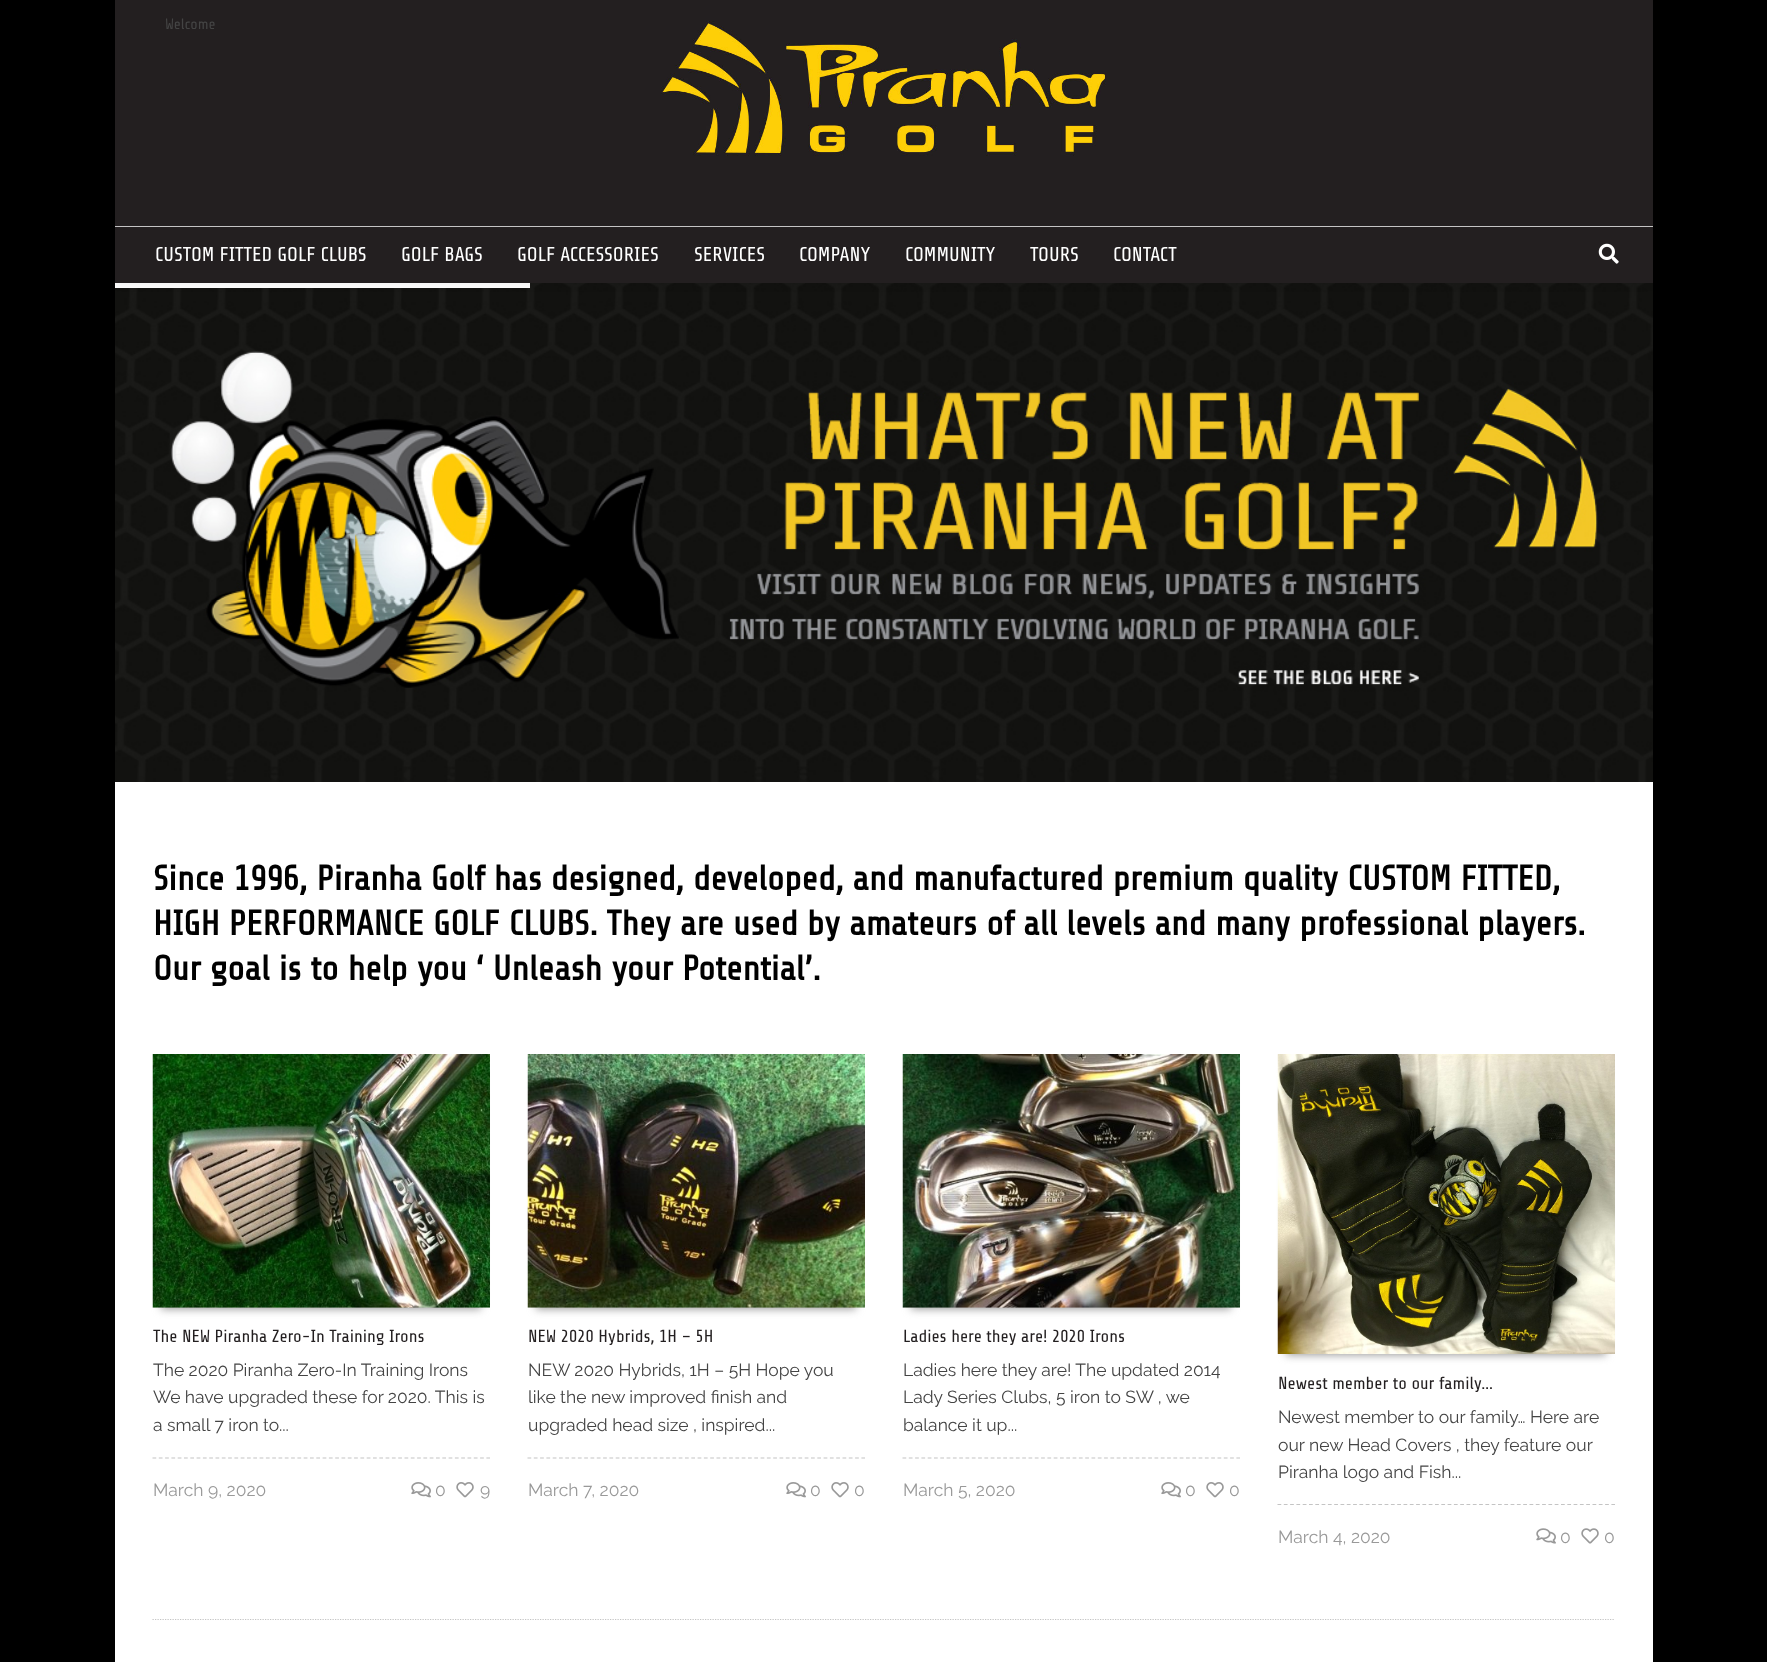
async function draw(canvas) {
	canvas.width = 1767;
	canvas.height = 1662;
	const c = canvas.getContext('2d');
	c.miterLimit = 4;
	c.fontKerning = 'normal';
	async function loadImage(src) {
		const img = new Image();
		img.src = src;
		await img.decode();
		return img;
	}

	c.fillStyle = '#000';
	c.fillRect(0, 0, 1767, 1662);
	c.fillStyle = '#fff';
	c.fillRect(115, 782, 1538, 880);
	c.drawImage(await loadImage('img3.png'), 115, 283, 1538, 499);
	c.fillRect(115, 283, 415, 5);
	c.fillStyle = '#0000000d';
	c.filter = 'blur(3px)';
	c.beginPath();
	c.rect(115, -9, 1538, 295);
	c.fill();
	c.filter = 'none';
	c.fillStyle = '#231f20';
	c.fillRect(115, 0, 1538, 283);
	c.font = '15px Share Tech';
	c.fillStyle = '#444';
	c.fillText('Welcome', 165, 29);
	c.drawImage(await loadImage('img1.png'), 661, 21, 445, 135);
	c.fillStyle = '#c4c4c4';
	c.fillRect(115, 226, 1538, 1);
	c.font = '20px Share Tech';
	c.fillStyle = '#fff';
	for (const [text, x, y] of [
		['CUSTOM FITTED GOLF CLUBS', 155, 261],
		['GOLF BAGS', 401, 261],
		['GOLF ACCESSORIES', 517, 261],
		['SERVICES', 694, 261],
		['COMPANY', 799, 261],
		['COMMUNITY', 905, 261],
		['TOURS', 1030, 261],
		['CONTACT', 1113, 261],
	]) {
		c.fillText(text, x, y);
	}
	c.drawImage(await loadImage('img2.png'), 1598, 243, 21, 21);
	c.font = 'bold 35px Share Tech';
	c.fillStyle = '#000';
	for (const [text, x, y] of [
		['Since 1996, Piranha Golf has designed, developed, and manufactured premium quality CUSTOM FITTED,', 153, 890],
		['HIGH PERFORMANCE GOLF CLUBS. They are used by amateurs of all levels and many professional players.', 153, 935],
		['Our goal is to help you ‘ Unleash your Potential’.', 153, 980],
	]) {
		c.fillText(text, x, y);
	}
	c.fillStyle = '#999';
	c.filter = 'blur(4px)';
	c.beginPath();
	c.rect(161, 1073, 320, 236);
	c.fill();
	c.filter = 'none';
	c.drawImage(await loadImage('img4.png'), 152, 1054, 338, 254);
	c.font = '17.5px Share Tech';
	c.fillStyle = '#231f20';
	c.fillText('The NEW Piranha Zero-In Training Irons', 153, 1342);
	c.font = '100 17.5px Raleway';
	c.fillStyle = '#444';
	for (const [text, x, y] of [
		['The 2020 Piranha Zero-In Training Irons', 153, 1376],
		['We have upgraded these for 2020. This is', 153, 1403],
		['a small 7 iron to...', 153, 1431],
	]) {
		c.fillText(text, x, y);
	}
	c.beginPath();
	c.moveTo(152.5, 1458);
	c.lineTo(490, 1458);
	c.strokeStyle = '#c4c4c4';
	c.lineWidth = 1.2;
	c.setLineDash([3.75, 2.55]);
	c.stroke();
	c.fillStyle = '#999';
	c.fillText('March 9, 2020', 153, 1496);
	c.drawImage(await loadImage('img5.png'), 411, 1482, 20, 16);
	c.fillText('0', 435, 1496);
	c.drawImage(await loadImage('img6.png'), 456, 1482, 18, 16);
	c.fillText('9', 480, 1496);
	c.filter = 'blur(4px)';
	c.beginPath();
	c.rect(536, 1073, 320, 236);
	c.fill();
	c.filter = 'none';
	c.drawImage(await loadImage('img7.png'), 527, 1054, 338, 254);
	c.font = '17.5px Share Tech';
	c.fillStyle = '#231f20';
	c.fillText('NEW 2020 Hybrids, 1H – 5H', 528, 1342);
	c.font = '100 17.5px Raleway';
	c.fillStyle = '#444';
	for (const [text, x, y] of [
		['NEW 2020 Hybrids, 1H – 5H Hope you', 528, 1376],
		['like the new improved finish and', 528, 1403],
		['upgraded head size , inspired...', 528, 1431],
	]) {
		c.fillText(text, x, y);
	}
	c.beginPath();
	c.moveTo(527.5, 1458);
	c.lineTo(865, 1458);
	c.stroke();
	c.fillStyle = '#999';
	c.fillText('March 7, 2020', 528, 1496);
	c.drawImage(await loadImage('img5.png'), 786, 1482, 20, 16);
	c.fillText('0', 810, 1496);
	c.drawImage(await loadImage('img6.png'), 831, 1482, 18, 16);
	c.fillText('0', 854, 1496);
	c.filter = 'blur(4px)';
	c.beginPath();
	c.rect(911, 1073, 320, 236);
	c.fill();
	c.filter = 'none';
	c.drawImage(await loadImage('img8.png'), 902, 1054, 338, 254);
	c.font = '17.5px Share Tech';
	c.fillStyle = '#231f20';
	c.fillText('Ladies here they are! 2020 Irons', 903, 1342);
	c.font = '100 17.5px Raleway';
	c.fillStyle = '#444';
	for (const [text, x, y] of [
		['Ladies here they are! The updated 2014', 903, 1376],
		['Lady Series Clubs, 5 iron to SW , we', 903, 1403],
		['balance it up...', 903, 1431],
	]) {
		c.fillText(text, x, y);
	}
	c.beginPath();
	c.moveTo(902.5, 1458);
	c.lineTo(1240, 1458);
	c.stroke();
	c.fillStyle = '#999';
	c.fillText('March 5, 2020', 903, 1496);
	c.drawImage(await loadImage('img5.png'), 1161, 1482, 20, 16);
	c.fillText('0', 1185, 1496);
	c.drawImage(await loadImage('img6.png'), 1206, 1482, 18, 16);
	c.fillText('0', 1229, 1496);
	c.filter = 'blur(4px)';
	c.beginPath();
	c.rect(1286, 1073, 320, 282);
	c.fill();
	c.filter = 'none';
	c.drawImage(await loadImage('img9.png'), 1277, 1054, 338, 300);
	c.font = '17.5px Share Tech';
	c.fillStyle = '#231f20';
	c.fillText('Newest member to our family…', 1278, 1389);
	c.font = '100 17.5px Raleway';
	c.fillStyle = '#444';
	for (const [text, x, y] of [
		['Newest member to our family… Here are', 1278, 1423],
		['our new Head Covers , they feature our', 1278, 1451],
		['Piranha logo and Fish...', 1278, 1478],
	]) {
		c.fillText(text, x, y);
	}
	c.beginPath();
	c.moveTo(1277.5, 1504.5);
	c.lineTo(1615, 1504.5);
	c.stroke();
	c.fillStyle = '#999';
	c.fillText('March 4, 2020', 1278, 1543);
	c.drawImage(await loadImage('img10.png'), 1536, 1528, 20, 16);
	c.fillText('0', 1560, 1543);
	c.drawImage(await loadImage('img11.png'), 1581, 1528, 18, 16);
	c.fillText('0', 1604, 1543);
	c.beginPath();
	c.moveTo(152.5, 1619.5);
	c.lineTo(1615, 1619.5);
	c.setLineDash([1.25, 1.25]);
	c.stroke();
}

draw(document.querySelector('canvas'));
